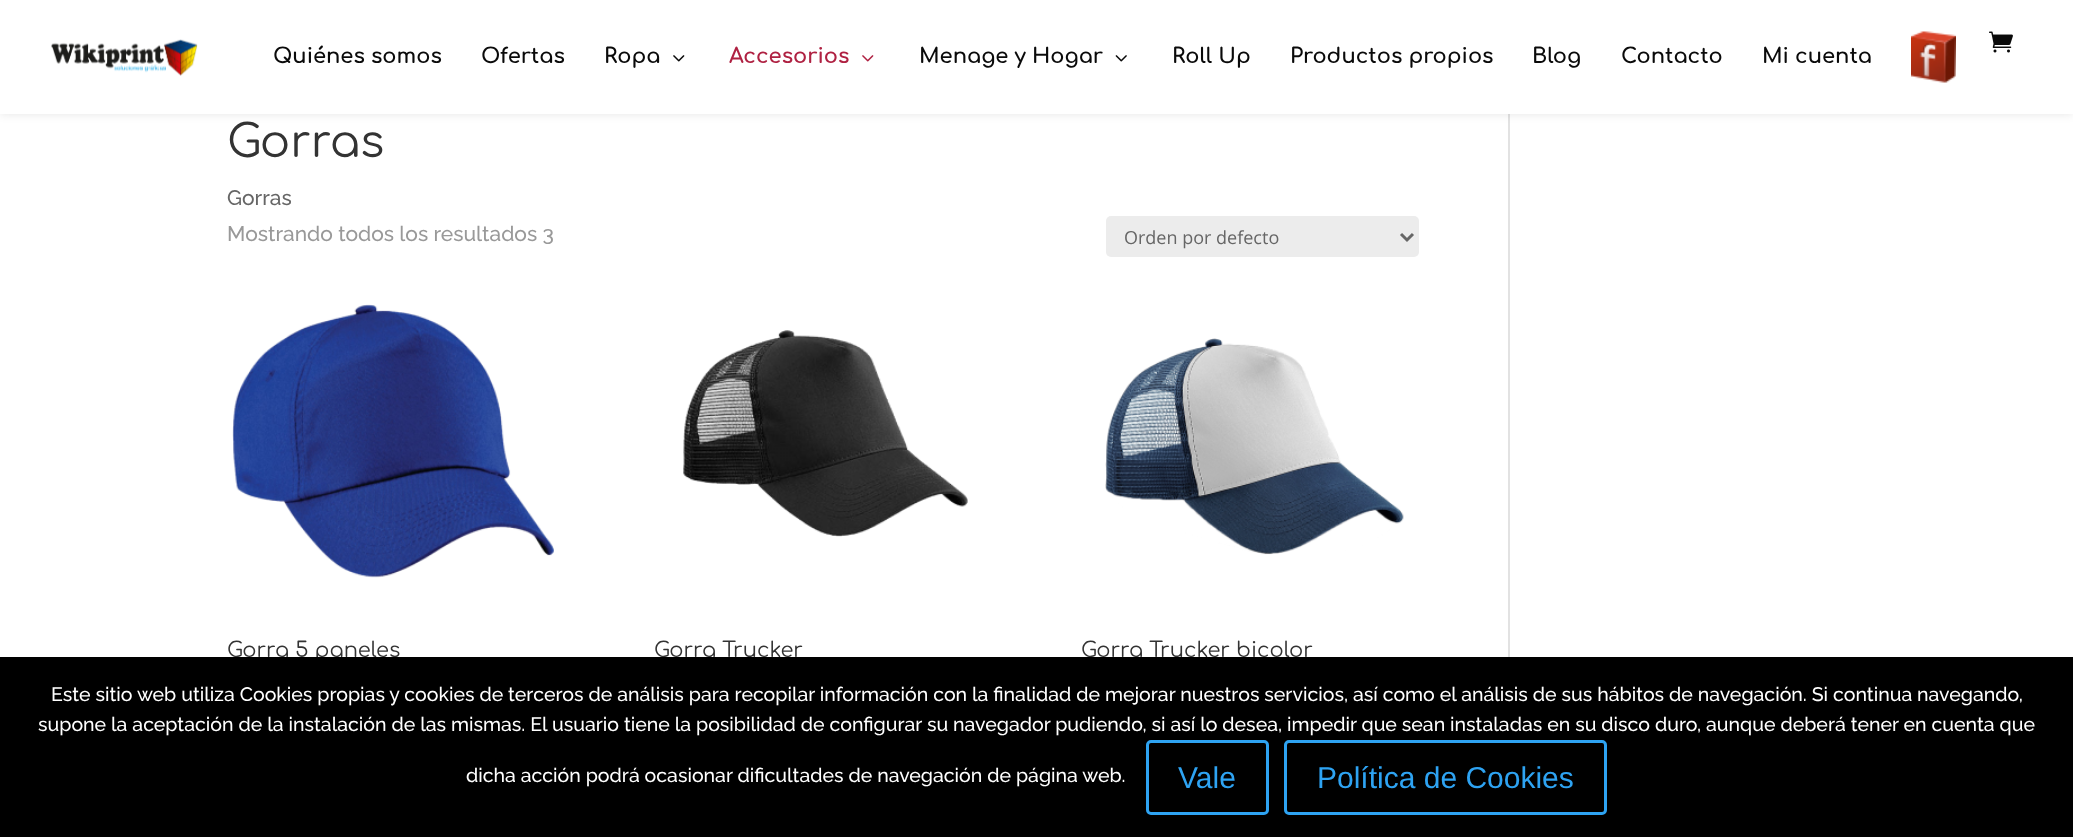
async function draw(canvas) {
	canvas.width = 2073;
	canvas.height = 837;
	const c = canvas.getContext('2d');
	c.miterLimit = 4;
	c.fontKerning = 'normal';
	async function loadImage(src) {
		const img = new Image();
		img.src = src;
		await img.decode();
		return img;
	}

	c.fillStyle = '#fff';
	c.fillRect(0, 0, 2073, 837);
	c.fillStyle = '#e2e2e2';
	c.fillRect(1508, 114, 2, 543);
	c.fillStyle = '#0000001a';
	c.filter = 'blur(5px)';
	c.beginPath();
	c.rect(0, 0, 2073, 114);
	c.fill();
	c.filter = 'none';
	c.fillStyle = '#fff';
	c.fillRect(0, 0, 2073, 114);
	c.drawImage(await loadImage('img1.png'), 51, 39, 147, 37);
	c.drawImage(await loadImage('img2.png'), 1989, 31, 24, 22);
	c.font = 'bold 21px Comfortaa';
	c.fillStyle = '#0a0a0a';
	for (const [text, x, y] of [
		['Quiénes somos', 273, 63],
		['Ofertas', 481, 63],
		['Ropa', 604, 63],
	]) {
		c.fillText(text, x, y);
	}
	c.drawImage(await loadImage('img3.png'), 673, 55, 12, 7);
	c.fillStyle = '#af2142';
	c.fillText('Accesorios', 729, 63);
	c.drawImage(await loadImage('img4.png'), 862, 55, 12, 7);
	c.fillStyle = '#0a0a0a';
	c.fillText('Menage y Hogar', 919, 63);
	c.drawImage(await loadImage('img5.png'), 1115, 55, 12, 7);
	for (const [text, x, y] of [
		['Roll Up', 1172, 63],
		['Productos propios', 1290, 63],
		['Blog', 1532, 63],
		['Contacto', 1621, 63],
		['Mi cuenta', 1762, 63],
	]) {
		c.fillText(text, x, y);
	}
	c.drawImage(await loadImage('img6.png'), 1911, 31, 45, 52);
	c.font = '45px Comfortaa';
	c.fillStyle = '#333';
	c.fillText('Gorras', 227, 157);
	c.font = '500 21px Raleway';
	c.fillStyle = '#666';
	c.fillText('Gorras', 227, 205);
	c.fillStyle = '#999';
	c.fillText('Mostrando todos los resultados 3', 227, 241);
	c.fillStyle = '#ececec';
	c.beginPath();
	c.roundRect(1106, 216, 313, 41, 5);
	c.fill();
	c.beginPath();
	c.moveTo(1401, 234);
	c.lineTo(1407, 240);
	c.lineTo(1413, 234);
	c.strokeStyle = '#666';
	c.lineWidth = 3;
	c.stroke();
	c.font = '18px Open Sans';
	c.fillStyle = '#666';
	c.fillText('Orden por defecto', 1124, 244);
	c.drawImage(await loadImage('img7.png'), 232, 304, 322, 274);
	c.font = '21px Comfortaa';
	c.fillStyle = '#333';
	c.fillText('Gorra 5 paneles', 227, 657);
	c.drawImage(await loadImage('img8.png'), 683, 330, 285, 207);
	c.fillText('Gorra Trucker', 654, 657);
	c.drawImage(await loadImage('img9.png'), 1105, 338, 299, 217);
	c.fillText('Gorra Trucker bicolor', 1081, 657);
	c.fillStyle = '#000';
	c.fillRect(0, 657, 2073, 180);
	c.font = '500 19.5px Raleway';
	c.fillStyle = '#fff';
	for (const [text, x, y] of [
		['Este sitio web utiliza Cookies propias y cookies de terceros de análisis para recopilar información con la finalidad de mejorar nuestros servicios, así como el análisis de sus hábitos de navegación. Si continua navegando,', 51, 701],
		['supone la aceptación de la instalación de las mismas. El usuario tiene la posibilidad de configurar su navegador pudiendo, si así lo desea, impedir que sean instaladas en su disco duro, aunque deberá tener en cuenta que', 38, 731],
		['dicha acción podrá ocasionar dificultades de navegación de página web.', 466, 782],
	]) {
		c.fillText(text, x, y);
	}
	c.beginPath();
	c.roundRect(1147.5, 741.5, 120, 72, 3.5);
	c.strokeStyle = '#2ea3f2';
	c.stroke();
	c.font = '30px Liberation Sans';
	c.fillStyle = '#2ea3f2';
	c.fillText('Vale', 1178, 788);
	c.beginPath();
	c.roundRect(1285.5, 741.5, 320, 72, 3.5);
	c.stroke();
	c.fillText('Política de Cookies', 1317, 788);
}

draw(document.querySelector('canvas'));
